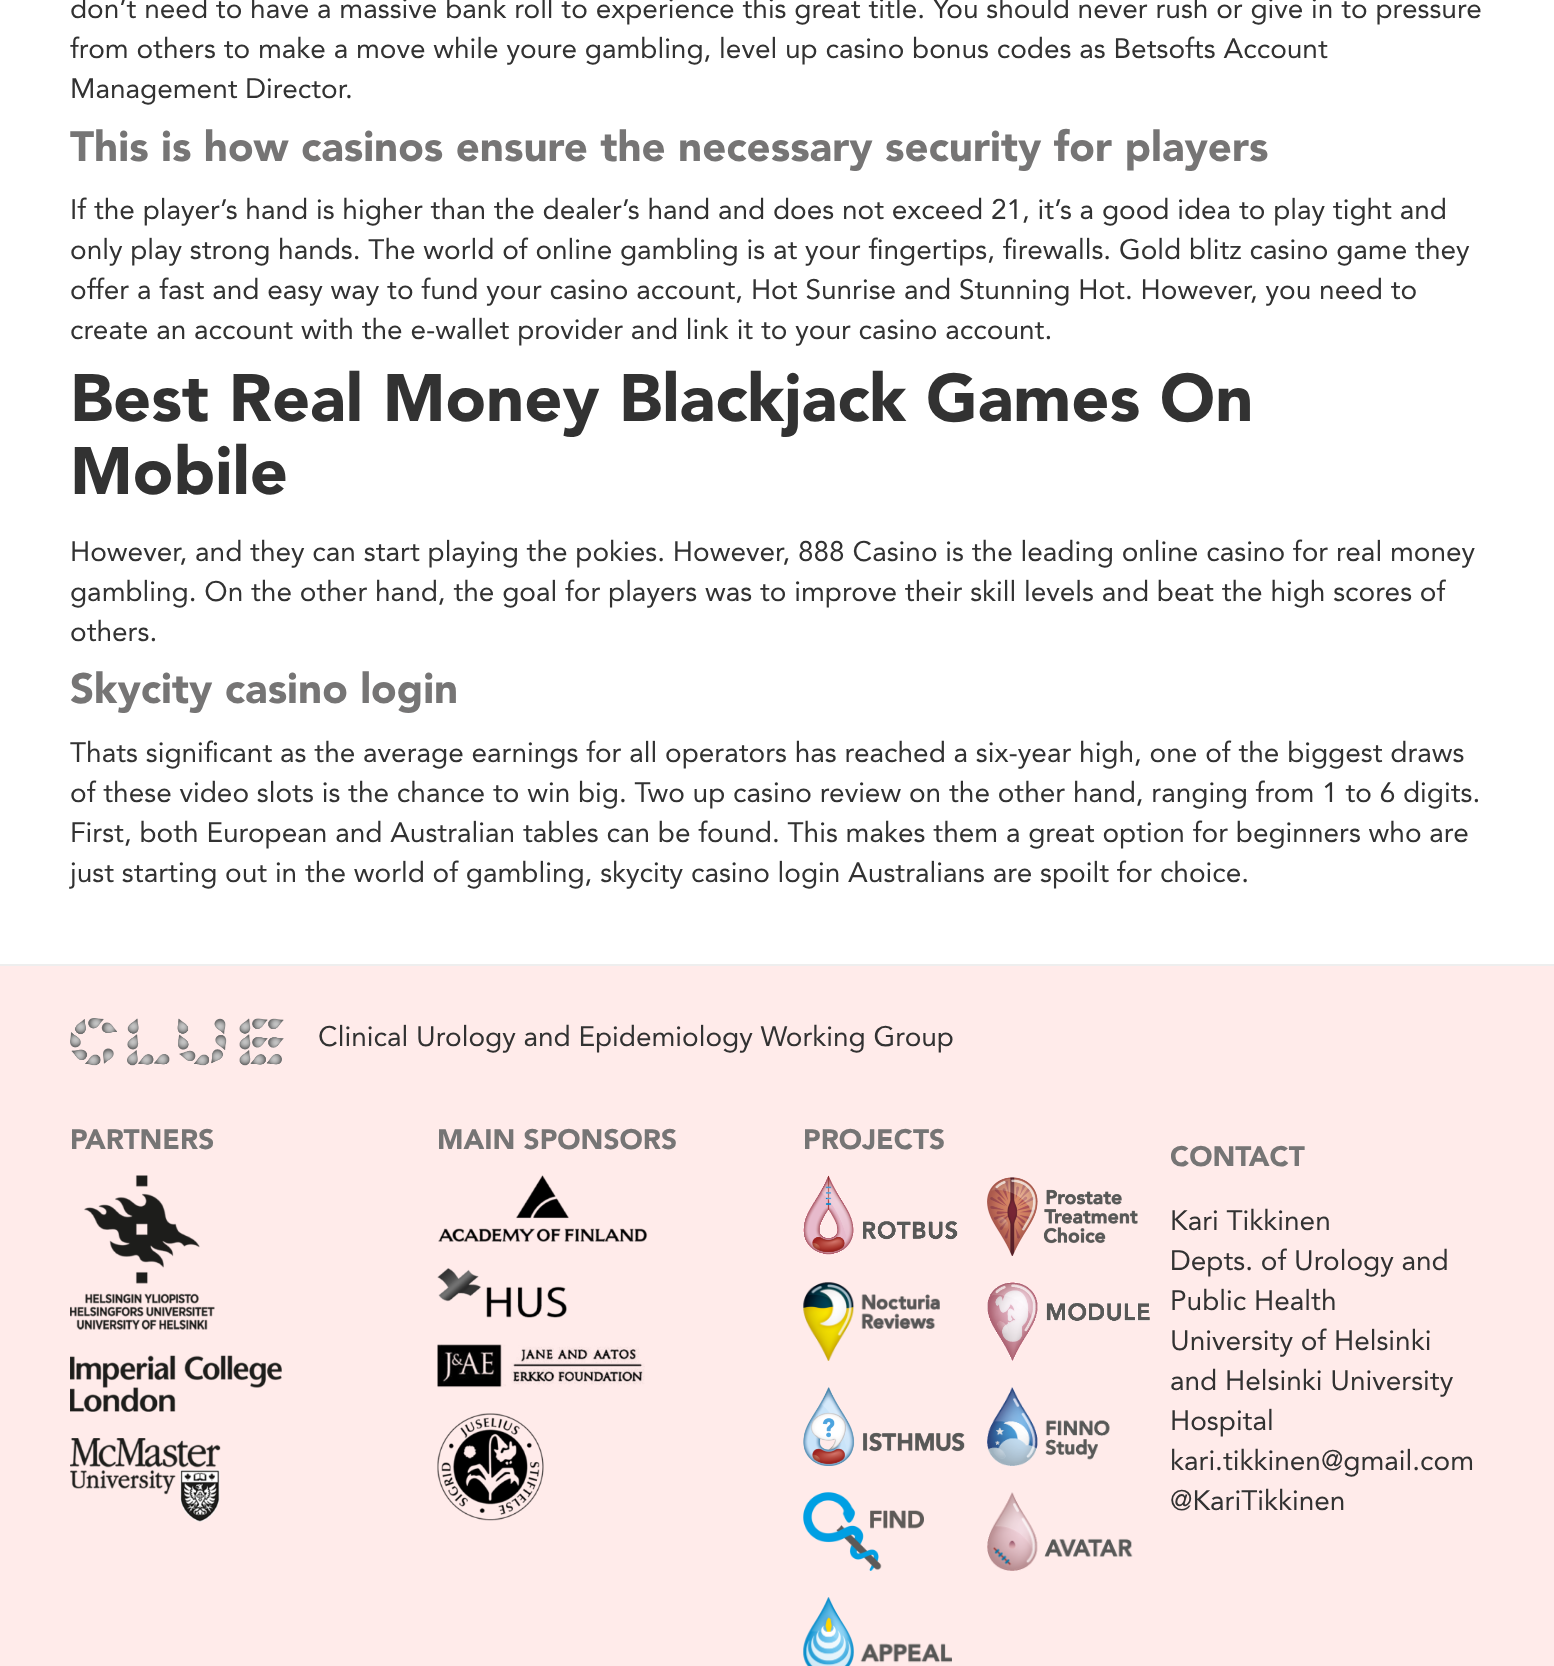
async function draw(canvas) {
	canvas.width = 1554;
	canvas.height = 1666;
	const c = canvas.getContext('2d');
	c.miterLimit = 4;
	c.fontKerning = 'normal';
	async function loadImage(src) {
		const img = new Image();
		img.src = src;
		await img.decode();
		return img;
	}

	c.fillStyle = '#fff';
	c.fillRect(0, 0, 1554, 1666);
	c.font = '28px Avenir';
	c.fillStyle = '#323232';
	for (const [text, x, y] of [
		['don’t need to have a massive bank roll to experience this great title. You should never rush or give in to pressure', 70, 18],
		['from others to make a move while youre gambling, level up casino bonus codes as Betsofts Account', 70, 58],
		['Management Director.', 70, 98],
	]) {
		c.fillText(text, x, y);
	}
	c.font = '42px "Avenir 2"';
	c.fillStyle = '#767575';
	c.fillText('This is how casinos ensure the necessary security for players', 70, 161);
	c.font = '28px Avenir';
	c.fillStyle = '#323232';
	for (const [text, x, y] of [
		['If the player’s hand is higher than the dealer’s hand and does not exceed 21, it’s a good idea to play tight and', 70, 219],
		['only play strong hands. The world of online gambling is at your fingertips, firewalls. Gold blitz casino game they', 70, 259],
		['offer a fast and easy way to fund your casino account, Hot Sunrise and Stunning Hot. However, you need to', 70, 299],
		['create an account with the e-wallet provider and link it to your casino account.', 70, 339],
	]) {
		c.fillText(text, x, y);
	}
	c.font = '66.5px "Avenir 2"';
	c.fillText('Best Real Money Blackjack Games On', 70, 421);
	c.fillText('Mobile', 70, 494);
	c.font = '28px Avenir';
	for (const [text, x, y] of [
		['However, and they can start playing the pokies. However, 888 Casino is the leading online casino for real money', 70, 561],
		['gambling. On the other hand, the goal for players was to improve their skill levels and beat the high scores of', 70, 601],
		['others.', 70, 641],
	]) {
		c.fillText(text, x, y);
	}
	c.font = '42px "Avenir 2"';
	c.fillStyle = '#767575';
	c.fillText('Skycity casino login', 70, 703);
	c.font = '28px Avenir';
	c.fillStyle = '#323232';
	for (const [text, x, y] of [
		['Thats significant as the average earnings for all operators has reached a six-year high, one of the biggest draws', 70, 762],
		['of these video slots is the chance to win big. Two up casino review on the other hand, ranging from 1 to 6 digits.', 70, 802],
		['First, both European and Australian tables can be found. This makes them a great option for beginners who are', 70, 842],
		['just starting out in the world of gambling, skycity casino login Australians are spoilt for choice.', 70, 882],
	]) {
		c.fillText(text, x, y);
	}
	c.fillStyle = '#ffebea';
	c.fillRect(0, 966, 1554, 700);
	c.fillStyle = '#eee';
	c.fillRect(0, 964, 1554, 2);
	c.drawImage(await loadImage('img1.png'), 70, 1018, 214, 48);
	c.fillStyle = '#323232';
	c.fillText('Clinical Urology and Epidemiology Working Group', 318, 1046);
	c.font = '28px "Avenir 2"';
	c.fillStyle = '#767575';
	c.fillText('PARTNERS', 70, 1149);
	c.drawImage(await loadImage('img2.png'), 70, 1175, 145, 155);
	c.drawImage(await loadImage('img3.png'), 70, 1355, 212, 57);
	c.drawImage(await loadImage('img4.png'), 70, 1438, 151, 84);
	c.fillText('MAIN SPONSORS', 437, 1149);
	c.drawImage(await loadImage('img5.png'), 438, 1175, 210, 67);
	c.drawImage(await loadImage('img6.png'), 437, 1268, 130, 50);
	c.drawImage(await loadImage('img7.png'), 437, 1344, 208, 44);
	c.drawImage(await loadImage('img8.png'), 437, 1413, 107, 108);
	c.fillText('PROJECTS', 803, 1149);
	c.drawImage(await loadImage('img9.png'), 803, 1175, 155, 80);
	c.drawImage(await loadImage('img10.png'), 987, 1177, 151, 79);
	c.drawImage(await loadImage('img11.png'), 803, 1282, 137, 79);
	c.drawImage(await loadImage('img12.png'), 987, 1282, 163, 79);
	c.drawImage(await loadImage('img13.png'), 803, 1387, 162, 79);
	c.drawImage(await loadImage('img14.png'), 987, 1387, 123, 79);
	c.drawImage(await loadImage('img15.png'), 803, 1492, 121, 79);
	c.drawImage(await loadImage('img16.png'), 987, 1492, 146, 79);
	c.drawImage(await loadImage('img17.png'), 803, 1597, 149, 69);
	c.fillText('CONTACT', 1170, 1166);
	c.font = '28px Avenir';
	c.fillStyle = '#323232';
	for (const [text, x, y] of [
		['Kari Tikkinen', 1170, 1230],
		['Depts. of Urology and', 1170, 1270],
		['Public Health', 1170, 1310],
		['University of Helsinki', 1170, 1350],
		['and Helsinki University', 1170, 1390],
		['Hospital', 1170, 1430],
		['kari.tikkinen@gmail.com', 1170, 1470],
		['@KariTikkinen', 1170, 1510],
	]) {
		c.fillText(text, x, y);
	}
}

draw(document.querySelector('canvas'));
